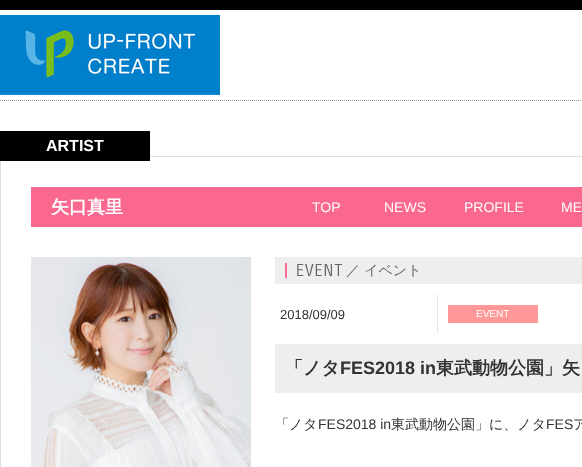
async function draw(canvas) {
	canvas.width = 582;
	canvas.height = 467;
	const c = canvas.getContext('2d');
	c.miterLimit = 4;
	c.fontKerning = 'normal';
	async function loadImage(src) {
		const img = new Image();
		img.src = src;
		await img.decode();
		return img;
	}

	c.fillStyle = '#fff';
	c.fillRect(0, 0, 582, 467);
	c.fillStyle = '#000';
	c.fillRect(0, 0, 582, 10);
	c.drawImage(await loadImage('img1.png'), 0, 15, 220, 80);
	c.beginPath();
	c.moveTo(0, 100.5);
	c.lineTo(582, 100.5);
	c.strokeStyle = '#999';
	c.setLineDash([1, 1]);
	c.stroke();
	c.strokeStyle = '#ddd';
	c.setLineDash([]);
	c.strokeRect(0.5, 156.5, 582, 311);
	c.fillRect(0, 131, 150, 30);
	c.font = 'bold 16px Liberation Sans';
	c.fillStyle = '#fff';
	c.fillText('ARTIST', 46, 151);
	c.fillStyle = '#fa688f';
	c.fillRect(31, 187, 551, 40);
	c.font = 'bold 18px WenQuanYi Zen Hei';
	c.fillStyle = '#fff';
	c.fillText('矢口真里', 51, 213);
	c.font = '14px Liberation Sans';
	for (const [text, x, y] of [
		['TOP', 312, 212],
		['NEWS', 384, 212],
		['PROFILE', 464, 212],
		['ME', 561, 212],
	]) {
		c.fillText(text, x, y);
	}
	c.drawImage(await loadImage('img2.png'), 31, 257, 220, 210);
	c.fillStyle = '#eee';
	c.fillRect(275, 257, 307, 27);
	c.fillStyle = '#f86a90';
	c.fillRect(285, 263, 2, 15);
	c.drawImage(await loadImage('img3.png'), 297, 264, 45, 12);
	c.font = '500 14px WenQuanYi Zen Hei';
	c.fillStyle = '#666';
	c.fillText('／ イベント', 346, 275);
	c.beginPath();
	c.moveTo(437.5, 294);
	c.lineTo(437.5, 334);
	c.strokeStyle = '#ccc';
	c.setLineDash([1, 1]);
	c.stroke();
	c.font = '13px Liberation Sans';
	c.fillStyle = '#333';
	c.fillText('2018/09/09', 280, 319);
	c.fillStyle = '#f99';
	c.fillRect(448, 305, 90, 18);
	c.font = '10px Liberation Sans';
	c.fillStyle = '#fff';
	c.fillText('EVENT', 476, 317);
	c.fillStyle = '#eee';
	c.fillRect(275, 344, 307, 49);
	c.font = 'bold 18px WenQuanYi Zen Hei';
	c.fillStyle = '#333';
	c.fillText('「ノタ', 285, 374);
	c.font = 'bold 18px Liberation Sans';
	c.fillText('FES2018 in', 340, 374);
	c.font = 'bold 18px WenQuanYi Zen Hei';
	c.fillText('東武動物公園」矢', 436, 374);
	c.font = '500 14px WenQuanYi Zen Hei';
	c.fillText('「ノタ', 275, 429);
	c.font = '14px Liberation Sans';
	c.fillText('FES2018 in', 318, 429);
	c.font = '500 14px WenQuanYi Zen Hei';
	c.fillText('東武動物公園」に、ノタ', 391, 429);
	c.font = '14px Liberation Sans';
	c.fillText('FES', 546, 429);
	c.font = '500 14px WenQuanYi Zen Hei';
	c.fillText('ア', 573, 429);
}

draw(document.querySelector('canvas'));
